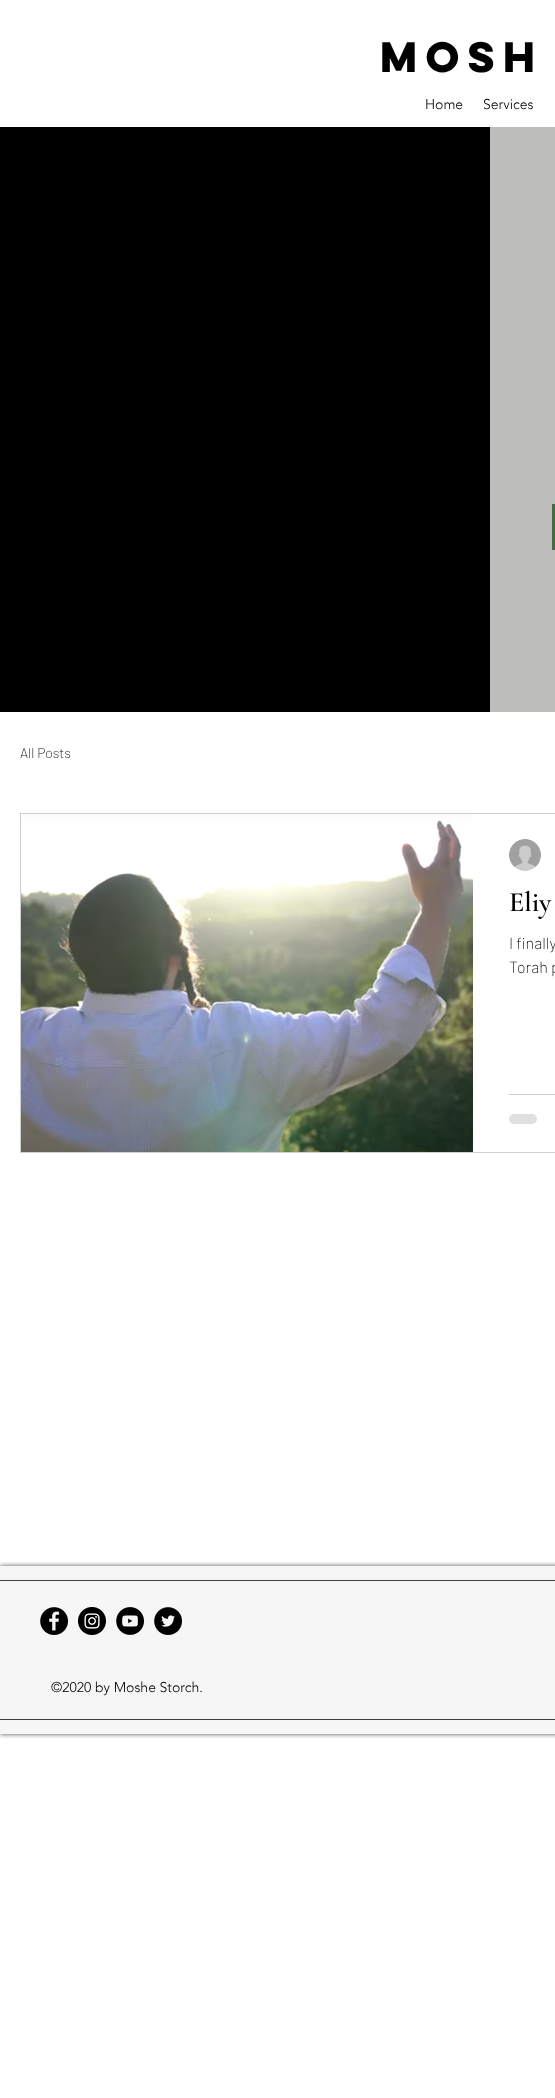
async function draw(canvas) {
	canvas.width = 555;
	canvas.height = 2098;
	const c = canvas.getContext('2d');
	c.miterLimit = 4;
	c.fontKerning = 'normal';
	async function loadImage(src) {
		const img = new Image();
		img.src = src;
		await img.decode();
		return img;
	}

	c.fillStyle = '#fff';
	c.fillRect(0, 0, 555, 2098);
	c.font = 'bold 38px "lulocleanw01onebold"';
	c.fillStyle = '#000';
	c.fillText('Mosh', 380, 72);
	c.font = '300 14px "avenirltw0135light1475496"';
	c.fillText('Home', 425, 109);
	c.fillText('Services', 483, 109);
	for (const [x, y, w, h, color] of [
		[0, 127, 490, 585, '#000'],
		[490, 127, 65, 585, '#bdbdbc'],
		[552, 504, 3, 46, '#456b41'],
	]) {
		c.fillStyle = color;
		c.fillRect(x, y, w, h);
	}
	c.font = '200 14px Barlow';
	c.fillStyle = '#000';
	c.fillText('All Posts', 20, 758);
	c.strokeStyle = '#cfcfcf';
	c.strokeRect(20.5, 813.5, 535, 339);
	c.drawImage(await loadImage('img1.png'), 21, 814, 452, 338);
	c.drawImage(await loadImage('img2.png'), 509, 839, 32, 32);
	c.font = '600 28px Cormorant Garamond';
	c.fillText('Eliy', 509, 911);
	c.font = '200 16px Barlow';
	c.fillText('I finally', 509, 949);
	c.fillText('Torah p', 509, 973);
	c.fillStyle = '#ccc';
	c.fillRect(509, 1094, 46, 1);
	c.fillStyle = '#e0e0e0';
	c.beginPath();
	c.roundRect(509, 1114, 28, 10, 5);
	c.fill();
	c.fillStyle = '#000000b3';
	c.filter = 'blur(2.5px)';
	c.beginPath();
	c.rect(0, 1566, 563, 168);
	c.fill();
	c.filter = 'none';
	for (const [x, y, w, h, color] of [
		[0, 1566, 555, 168, '#f6f6f6'],
		[0, 1580, 555, 1, '#404040'],
		[0, 1719, 555, 1, '#404040'],
	]) {
		c.fillStyle = color;
		c.fillRect(x, y, w, h);
	}
	c.drawImage(await loadImage('img3.png'), 40, 1607, 28, 28);
	c.drawImage(await loadImage('img4.png'), 78, 1607, 28, 28);
	c.drawImage(await loadImage('img5.png'), 116, 1607, 28, 28);
	c.drawImage(await loadImage('img6.png'), 154, 1607, 28, 28);
	c.font = '300 14px "avenirltw0135light1475496"';
	c.fillStyle = '#000';
	c.fillText('©2020 by Moshe Storch.', 51, 1692);
}

draw(document.querySelector('canvas'));
